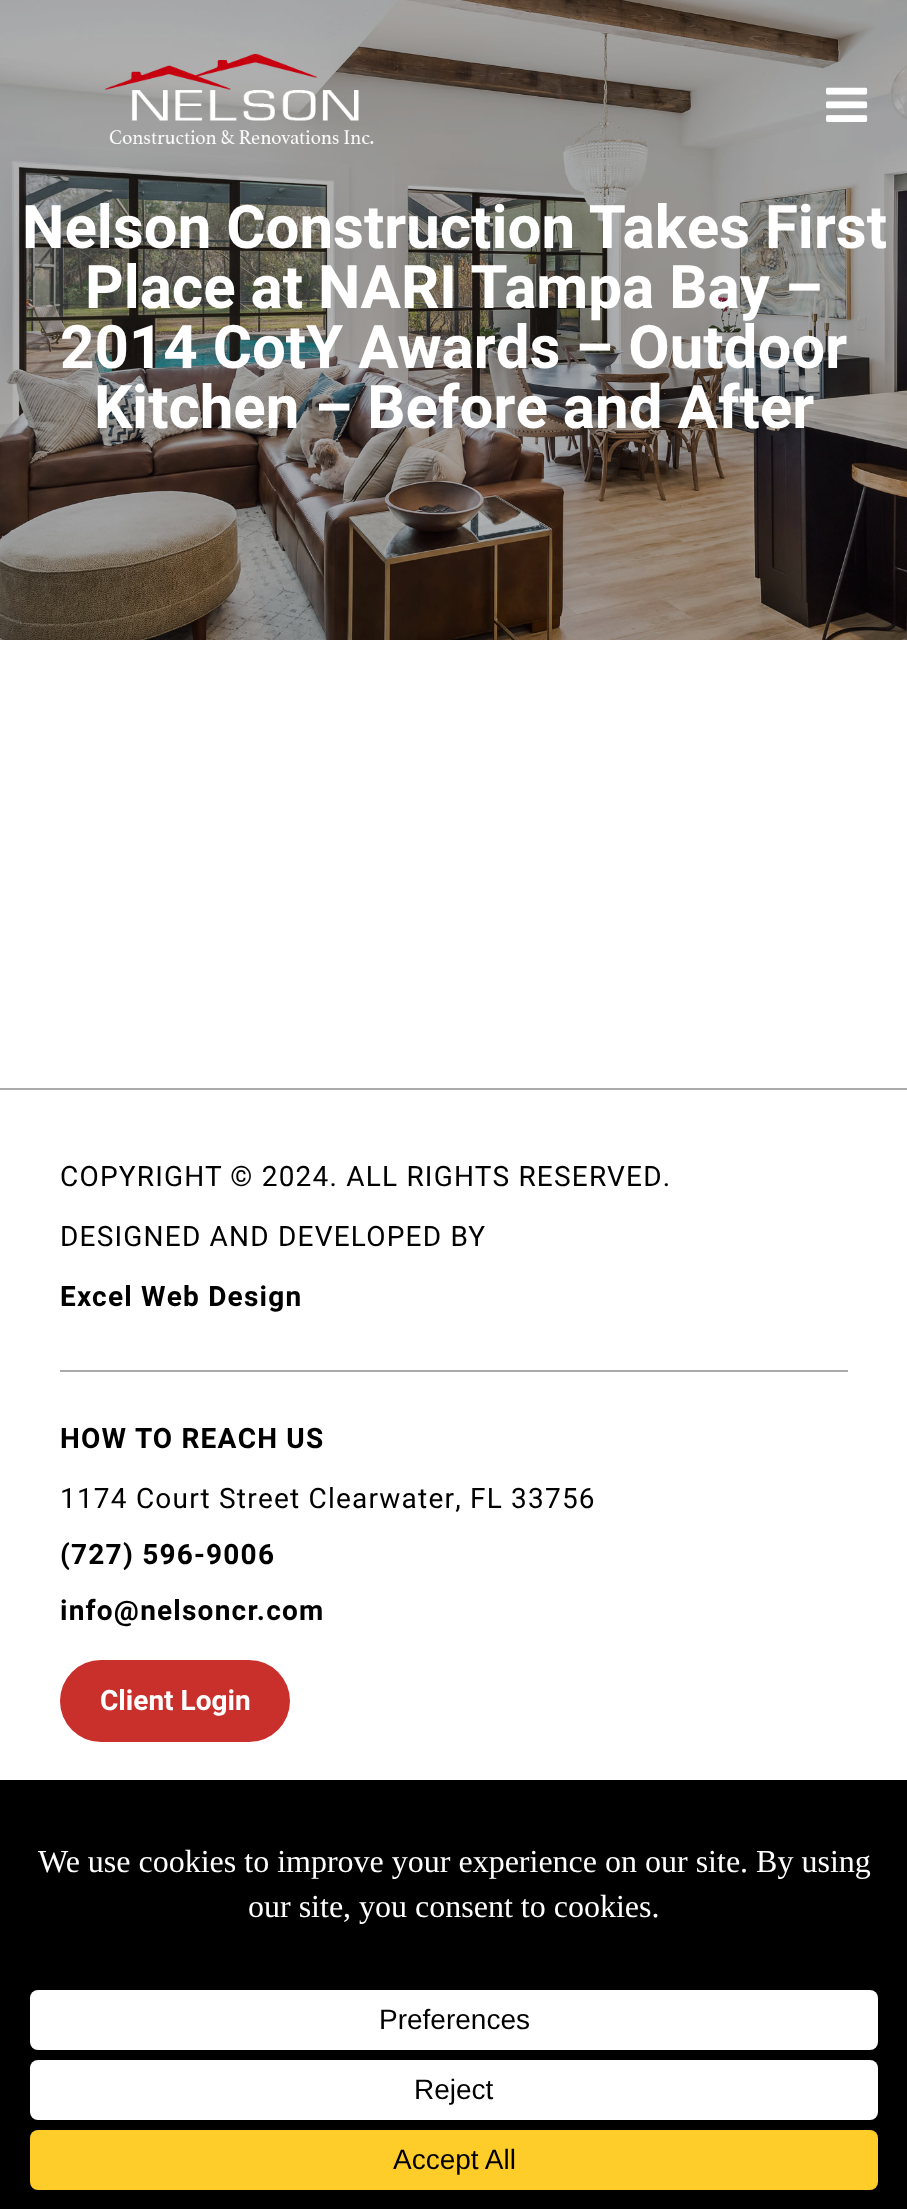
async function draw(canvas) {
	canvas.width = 907;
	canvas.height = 2209;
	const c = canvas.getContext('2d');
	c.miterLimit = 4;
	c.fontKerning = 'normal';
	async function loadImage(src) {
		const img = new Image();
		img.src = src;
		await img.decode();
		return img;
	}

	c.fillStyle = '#fff';
	c.fillRect(0, 0, 907, 2209);
	c.drawImage(await loadImage('img3.png'), 0, 0, 907, 640);
	c.drawImage(await loadImage('img1.png'), 105, 53, 269, 91);
	c.drawImage(await loadImage('img2.png'), 826, 87, 42, 35);
	c.font = 'bold 60px Heebo';
	for (const [text, x, y] of [
		['Nelson Construction Takes First', 22, 248],
		['Place at NARI Tampa Bay –', 85, 308],
		['2014 CotY Awards – Outdoor', 60, 368],
		['Kitchen – Before and After', 94, 428],
	]) {
		c.fillText(text, x, y);
	}
	c.fillStyle = '#aaa';
	c.fillRect(0, 1088, 907, 2);
	c.fillRect(60, 1370, 788, 2);
	c.letterSpacing = '1.2px';
	c.font = '28px Heebo';
	c.fillStyle = '#000';
	c.fillText('COPYRIGHT © 2024. ALL RIGHTS RESERVED.', 60, 1186);
	c.fillText('DESIGNED AND DEVELOPED BY', 60, 1246);
	c.font = 'bold 28px Heebo';
	c.fillText('Excel Web Design', 60, 1306);
	c.fillText('HOW TO REACH US', 60, 1448);
	c.font = '28px Heebo';
	c.fillText('1174 Court Street Clearwater, FL 33756', 60, 1508);
	c.font = 'bold 28px Heebo';
	c.fillText('(727) 596-9006', 60, 1564);
	c.fillText('info@nelsoncr.com', 60, 1620);
	c.fillStyle = '#c9302c';
	c.beginPath();
	c.roundRect(60, 1660, 230, 82, 41);
	c.fill();
	c.letterSpacing = '0px';
	c.fillStyle = '#fff';
	c.fillText('Client Login', 100, 1710);
	c.fillStyle = '#000';
	c.fillRect(0, 1780, 907, 429);
	c.font = '32px Liberation Serif';
	c.fillStyle = '#fff';
	c.fillText('We use cookies to improve your experience on our site. By using', 38, 1872);
	c.fillText('our site, you consent to cookies.', 248, 1917);
	c.beginPath();
	c.roundRect(30, 1990, 848, 60, 8);
	c.fill();
	c.font = '28px Liberation Sans';
	c.fillStyle = '#000';
	c.fillText('Preferences', 379, 2029);
	c.fillStyle = '#fff';
	c.beginPath();
	c.roundRect(30, 2060, 848, 60, 8);
	c.fill();
	c.fillStyle = '#000';
	c.fillText('Reject', 414, 2099);
	c.fillStyle = '#ffcd2a';
	c.beginPath();
	c.roundRect(30, 2130, 848, 60, 8);
	c.fill();
	c.fillStyle = '#000';
	c.fillText('Accept All', 393, 2169);
}

draw(document.querySelector('canvas'));
